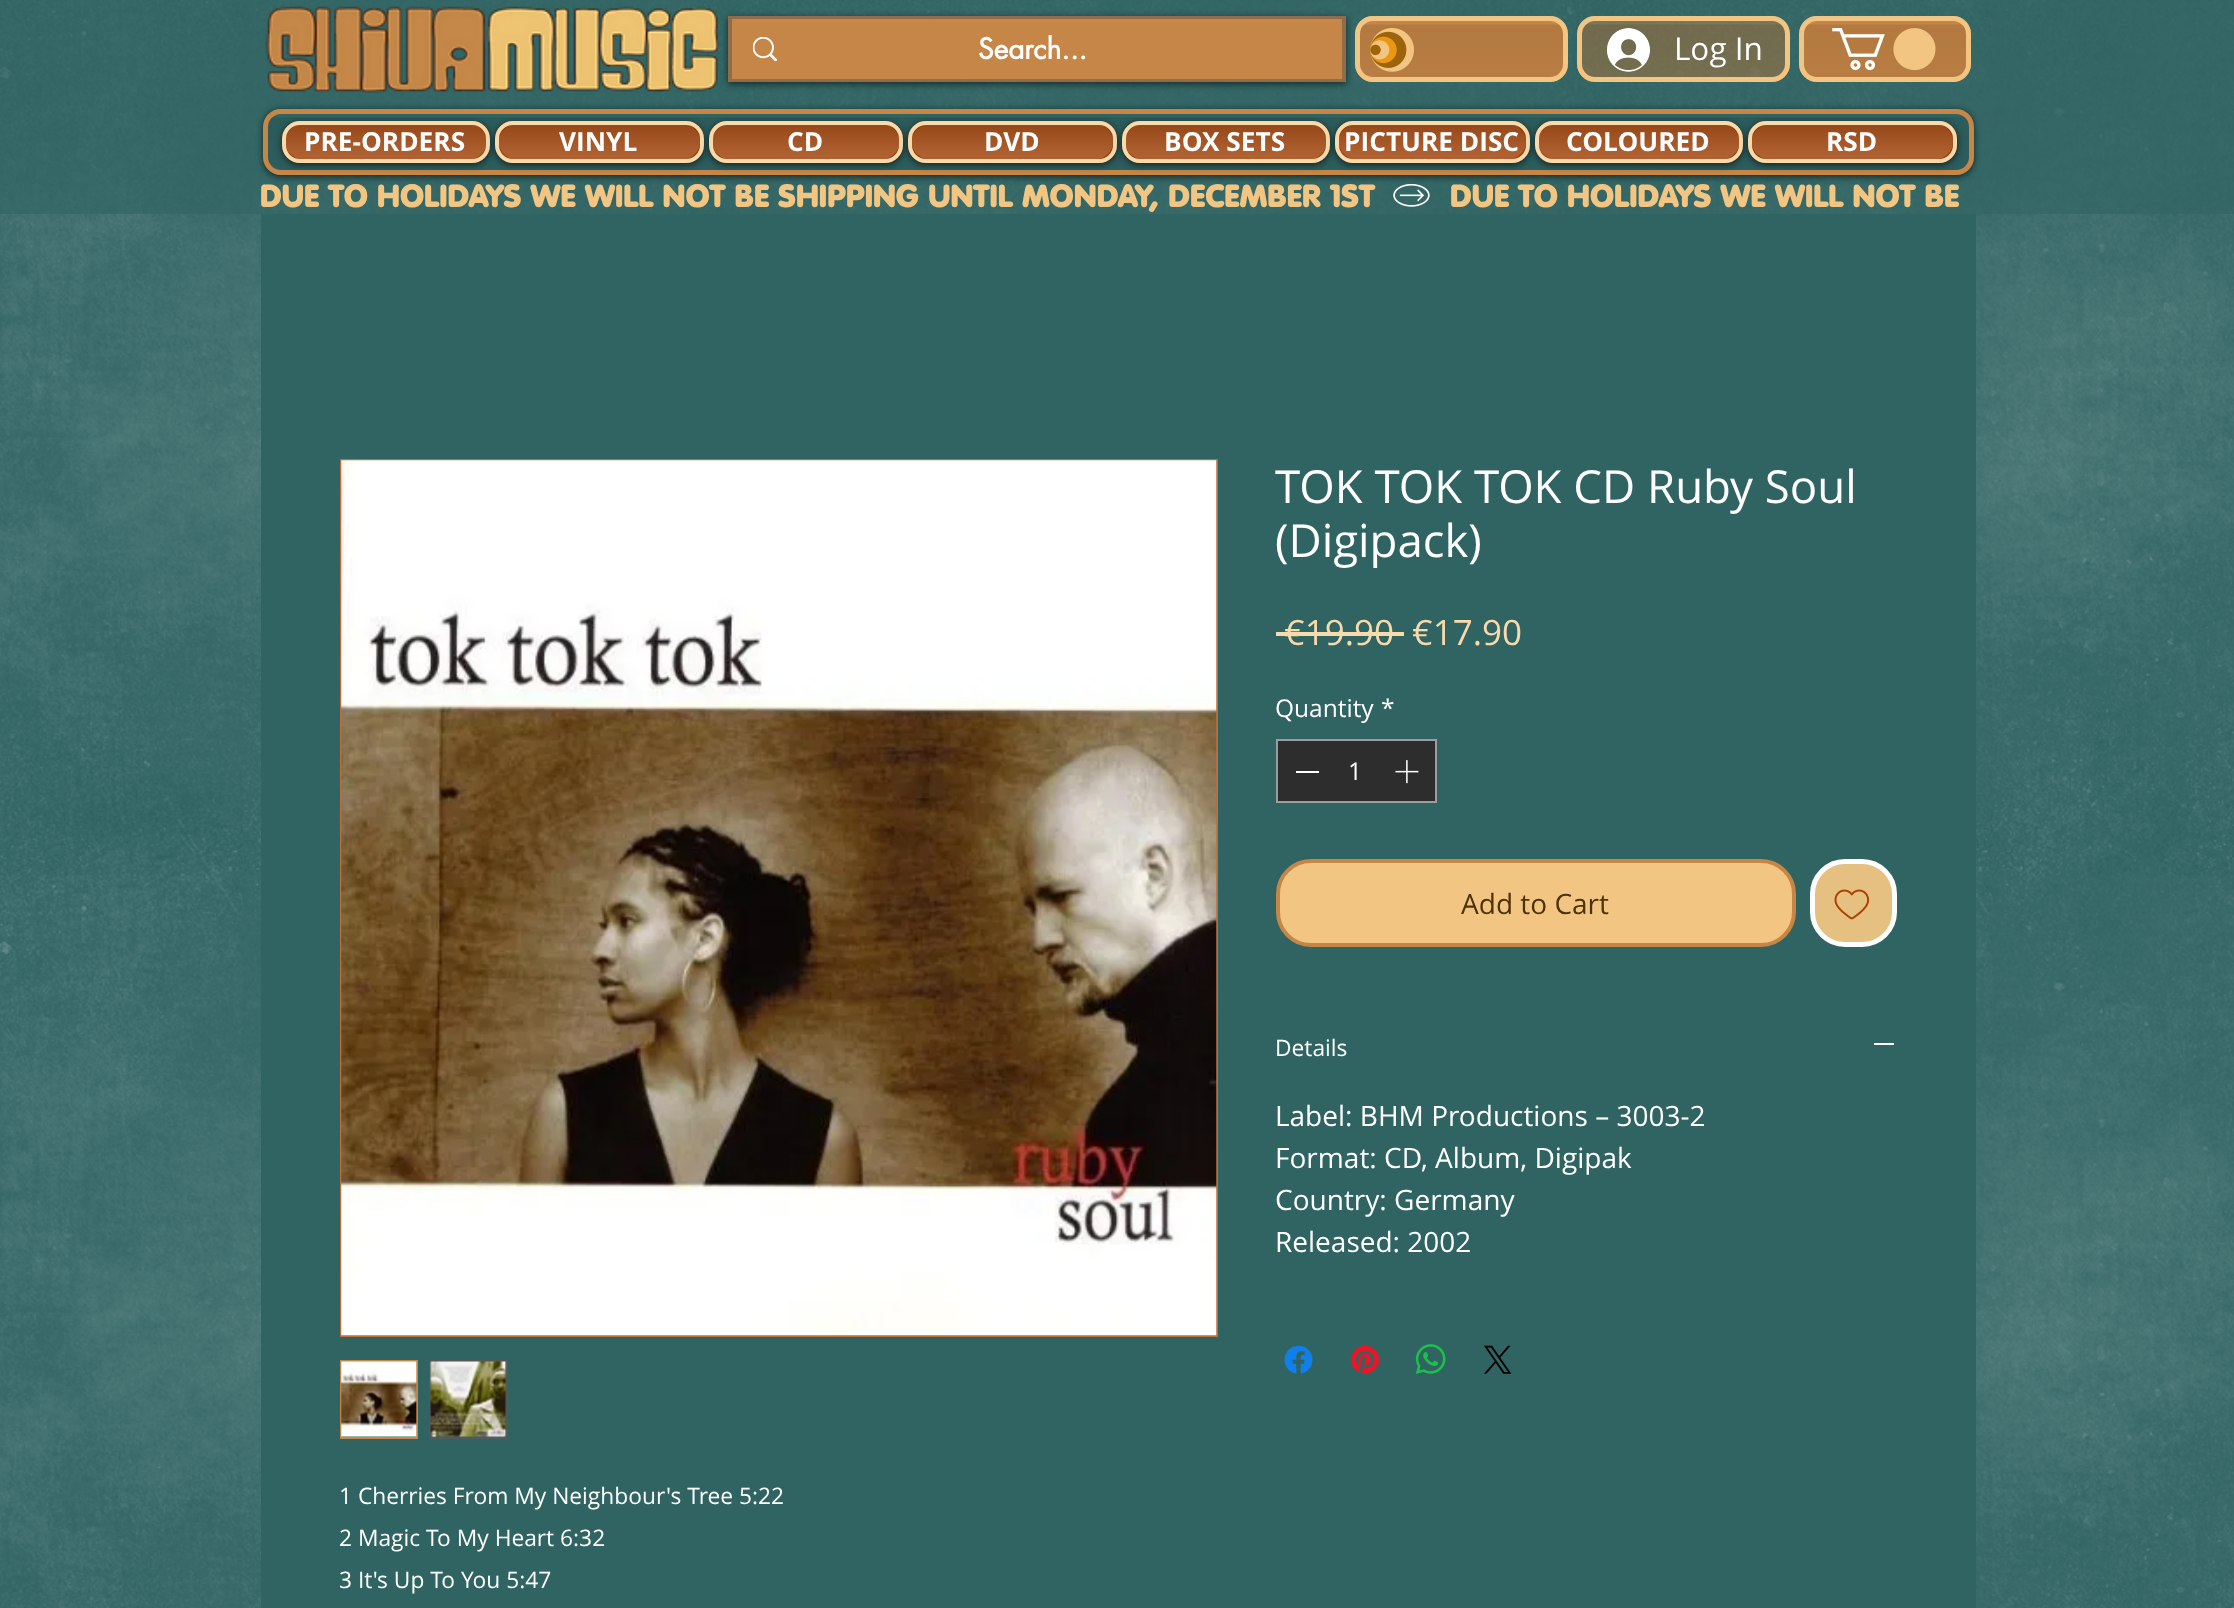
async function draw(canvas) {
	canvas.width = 2234;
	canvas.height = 1608;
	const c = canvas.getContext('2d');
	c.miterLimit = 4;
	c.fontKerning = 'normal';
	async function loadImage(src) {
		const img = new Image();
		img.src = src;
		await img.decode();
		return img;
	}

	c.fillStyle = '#306463';
	c.fillRect(0, 0, 2234, 1608);
	c.drawImage(await loadImage('img1.png'), 0, 0, 2234, 1608);
	c.fillStyle = '#30646399';
	c.fillRect(0, 0, 2234, 214);
	c.drawImage(await loadImage('img2.png'), 265, 6, 454, 87);
	c.save();
	c.beginPath();
	c.moveTo(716, 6);
	c.lineTo(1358, 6);
	c.lineTo(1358, 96);
	c.lineTo(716, 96);
	c.closePath();
	c.moveTo(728, 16);
	c.lineTo(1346, 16);
	c.lineTo(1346, 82);
	c.lineTo(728, 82);
	c.closePath();
	c.clip('evenodd');
	c.fillStyle = '#00000099';
	c.filter = 'blur(3.5px)';
	c.beginPath();
	c.rect(728, 18, 618, 66);
	c.fill();
	c.filter = 'none';
	c.restore();
	c.fillStyle = '#c58647';
	c.beginPath();
	c.roundRect(1355, 16, 213, 66, 18);
	c.fill();
	c.drawImage(await loadImage('img3.png'), 1355, 24, 213, 58);
	c.beginPath();
	c.roundRect(1357.5, 18.5, 208, 61, 15.5);
	c.strokeStyle = '#f2c682';
	c.lineWidth = 5;
	c.stroke();
	c.fillStyle = '#c5864780';
	c.beginPath();
	c.roundRect(1577, 16, 213, 66, 18);
	c.fill();
	c.drawImage(await loadImage('img4.png'), 1577, 24, 213, 58);
	c.beginPath();
	c.roundRect(1579.5, 18.5, 208, 61, 15.5);
	c.stroke();
	c.fillStyle = '#c58647';
	c.beginPath();
	c.roundRect(1799, 16, 172, 66, 18);
	c.fill();
	c.drawImage(await loadImage('img5.png'), 1799, 24, 171, 58);
	c.beginPath();
	c.roundRect(1801.5, 18.5, 167, 61, 15.5);
	c.stroke();
	c.strokeStyle = '#bd6e3eb0';
	c.lineWidth = 4;
	c.strokeRect(730, 18, 614, 62);
	c.fillRect(732, 19, 610, 60);
	c.drawImage(await loadImage('img6.png'), 753, 37, 24, 24);
	c.font = 'bold 28px futura';
	c.fillStyle = '#fff';
	c.fillText('Search...', 978, 59);
	c.drawImage(await loadImage('img7.png'), 1370, 28, 44, 44);
	c.drawImage(await loadImage('img8.png'), 1607, 28, 43, 44);
	c.font = '31.5px Open Sans';
	c.fillText('Log In', 1674, 60);
	c.drawImage(await loadImage('img9.png'), 1832, 28, 104, 43);
	c.fillStyle = '#00000099';
	c.filter = 'blur(3.5px)';
	c.beginPath();
	c.roundRect(263, 110, 1711, 67, 18);
	c.fill();
	c.filter = 'none';
	c.fillStyle = '#306463';
	c.beginPath();
	c.roundRect(263, 109, 1711, 66, 18);
	c.fill();
	c.drawImage(await loadImage('img10.png'), 263, 117, 1711, 58);
	c.beginPath();
	c.roundRect(265.5, 111.5, 1706, 61, 15.5);
	c.strokeStyle = '#c58647';
	c.lineWidth = 5;
	c.stroke();
	c.fillStyle = '#00000099';
	c.filter = 'blur(3.5px)';
	c.beginPath();
	c.roundRect(282, 123, 208, 42, 18);
	c.fill();
	c.filter = 'none';
	c.fillStyle = '#a84000';
	c.beginPath();
	c.roundRect(282, 121, 208, 42, 18);
	c.fill();
	c.drawImage(await loadImage('img11.png'), 282, 124, 208, 38);
	c.beginPath();
	c.roundRect(284, 123, 204, 38, 16);
	c.strokeStyle = '#f8daac';
	c.lineWidth = 4;
	c.stroke();
	c.drawImage(await loadImage('img12.png'), 285, 124, 201, 35);
	c.font = 'bold 26.25px Open Sans';
	c.fillStyle = '#fff';
	c.fillText('PRE-ORDERS', 304, 151);
	c.fillStyle = '#00000099';
	c.filter = 'blur(3.5px)';
	c.beginPath();
	c.roundRect(495, 123, 209, 42, 18);
	c.fill();
	c.filter = 'none';
	c.fillStyle = '#a84000';
	c.beginPath();
	c.roundRect(495, 121, 209, 42, 18);
	c.fill();
	c.drawImage(await loadImage('img13.png'), 495, 124, 209, 38);
	c.beginPath();
	c.roundRect(497, 123, 205, 38, 16);
	c.stroke();
	c.drawImage(await loadImage('img14.png'), 499, 124, 201, 35);
	c.fillStyle = '#fff';
	c.fillText('VINYL', 559, 151);
	c.fillStyle = '#00000099';
	c.filter = 'blur(3.5px)';
	c.beginPath();
	c.roundRect(709, 123, 194, 42, 18);
	c.fill();
	c.filter = 'none';
	c.fillStyle = '#a84000';
	c.beginPath();
	c.roundRect(709, 121, 194, 42, 18);
	c.fill();
	c.drawImage(await loadImage('img15.png'), 709, 124, 194, 38);
	c.beginPath();
	c.roundRect(711, 123, 190, 38, 16);
	c.stroke();
	c.drawImage(await loadImage('img16.png'), 712, 124, 187, 35);
	c.fillStyle = '#fff';
	c.fillText('CD', 787, 151);
	c.fillStyle = '#00000099';
	c.filter = 'blur(3.5px)';
	c.beginPath();
	c.roundRect(908, 123, 209, 42, 18);
	c.fill();
	c.filter = 'none';
	c.fillStyle = '#a84000';
	c.beginPath();
	c.roundRect(908, 121, 209, 42, 18);
	c.fill();
	c.drawImage(await loadImage('img17.png'), 908, 124, 209, 38);
	c.beginPath();
	c.roundRect(910, 123, 205, 38, 16);
	c.stroke();
	c.drawImage(await loadImage('img18.png'), 912, 124, 201, 35);
	c.fillStyle = '#fff';
	c.fillText('DVD', 984, 151);
	c.fillStyle = '#00000099';
	c.filter = 'blur(3.5px)';
	c.beginPath();
	c.roundRect(1122, 123, 208, 42, 18);
	c.fill();
	c.filter = 'none';
	c.fillStyle = '#a84000';
	c.beginPath();
	c.roundRect(1122, 121, 208, 42, 18);
	c.fill();
	c.drawImage(await loadImage('img19.png'), 1122, 124, 208, 38);
	c.beginPath();
	c.roundRect(1124, 123, 204, 38, 16);
	c.stroke();
	c.drawImage(await loadImage('img20.png'), 1125, 124, 201, 35);
	c.fillStyle = '#fff';
	c.fillText('BOX SETS', 1164, 151);
	c.fillStyle = '#00000099';
	c.filter = 'blur(3.5px)';
	c.beginPath();
	c.roundRect(1335, 123, 195, 42, 18);
	c.fill();
	c.filter = 'none';
	c.fillStyle = '#a84000';
	c.beginPath();
	c.roundRect(1335, 121, 195, 42, 18);
	c.fill();
	c.drawImage(await loadImage('img21.png'), 1335, 124, 195, 38);
	c.beginPath();
	c.roundRect(1337, 123, 191, 38, 16);
	c.stroke();
	c.drawImage(await loadImage('img22.png'), 1339, 124, 187, 35);
	c.fillStyle = '#fff';
	c.fillText('PICTURE DISC', 1344, 151);
	c.fillStyle = '#00000099';
	c.filter = 'blur(3.5px)';
	c.beginPath();
	c.roundRect(1535, 123, 208, 42, 18);
	c.fill();
	c.filter = 'none';
	c.fillStyle = '#a84000';
	c.beginPath();
	c.roundRect(1535, 121, 208, 42, 18);
	c.fill();
	c.drawImage(await loadImage('img19.png'), 1535, 124, 208, 38);
	c.beginPath();
	c.roundRect(1537, 123, 204, 38, 16);
	c.stroke();
	c.drawImage(await loadImage('img12.png'), 1538, 124, 201, 35);
	c.fillStyle = '#fff';
	c.fillText('COLOURED', 1566, 151);
	c.fillStyle = '#00000099';
	c.filter = 'blur(3.5px)';
	c.beginPath();
	c.roundRect(1748, 123, 209, 42, 18);
	c.fill();
	c.filter = 'none';
	c.fillStyle = '#a84000';
	c.beginPath();
	c.roundRect(1748, 121, 209, 42, 18);
	c.fill();
	c.drawImage(await loadImage('img17.png'), 1748, 124, 209, 38);
	c.beginPath();
	c.roundRect(1750, 123, 205, 38, 16);
	c.stroke();
	c.drawImage(await loadImage('img18.png'), 1752, 124, 201, 35);
	c.fillStyle = '#fff';
	c.fillText('RSD', 1826, 151);
	c.font = '800 31.5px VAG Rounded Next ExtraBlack';
	c.fillStyle = '#f2c682';
	c.fillText('DUE TO HOLIDAYS WE WILL NOT BE SHIPPING UNTIL MONDAY, DECEMBER 1ST', 260, 207);
	c.drawImage(await loadImage('img23.png'), 1393, 184, 37, 23);
	c.fillText('DUE TO HOLIDAYS WE WILL NOT BE', 1450, 207);
	c.fillStyle = '#306463';
	c.fillRect(261, 214, 1715, 1394);
	c.font = '45.5px Open Sans';
	c.fillStyle = '#fff';
	c.fillText('TOK TOK TOK CD Ruby Soul', 1275, 503);
	c.fillText('(Digipack)', 1275, 557);
	c.font = '35px Open Sans';
	c.fillStyle = '#f8daac';
	c.fillText('€19.90', 1284, 645);
	c.fillRect(1276, 632, 128, 4);
	c.fillText('€17.90', 1412, 645);
	c.font = '24.5px Open Sans';
	c.fillStyle = '#fff';
	c.fillText('Quantity', 1275, 717);
	c.fillText('*', 1381, 717);
	c.fillStyle = '#2d2d2d';
	c.beginPath();
	c.rect(1277, 740, 159, 62);
	c.fill();
	c.strokeStyle = '#9d9d9d';
	c.lineWidth = 2;
	c.stroke();
	c.fillStyle = '#fff';
	c.fillRect(1296, 771, 23, 2);
	c.fillText('1', 1348, 780);
	c.drawImage(await loadImage('img24.png'), 1395, 760, 24, 24);
	c.fillStyle = '#f2c682';
	c.beginPath();
	c.roundRect(1278, 861, 516, 84, 33);
	c.fill();
	c.strokeStyle = '#c58647';
	c.lineWidth = 4;
	c.stroke();
	c.font = '28px Open Sans';
	c.fillStyle = '#4e3206';
	c.fillText('Add to Cart', 1461, 914);
	c.fillStyle = '#e6c080';
	c.beginPath();
	c.roundRect(1812.5, 861.5, 82, 83, 32.5);
	c.fill();
	c.strokeStyle = '#fff';
	c.lineWidth = 5;
	c.stroke();
	c.drawImage(await loadImage('img25.png'), 1834, 889, 36, 31);
	c.font = '22.75px Open Sans';
	c.fillStyle = '#fff';
	c.fillText('Details', 1275, 1056);
	c.fillRect(1874, 1043, 20, 2);
	c.font = '28px Open Sans';
	for (const [text, x, y] of [
		['Label: BHM Productions – 3003-2', 1275, 1126],
		['Format: CD, Album, Digipak', 1275, 1168],
		['Country: Germany', 1275, 1210],
		['Released: 2002', 1275, 1252],
	]) {
		c.fillText(text, x, y);
	}
	c.drawImage(await loadImage('img26.png'), 1284, 1345, 29, 29);
	c.drawImage(await loadImage('img27.png'), 1351, 1345, 28, 29);
	c.drawImage(await loadImage('img28.png'), 1415, 1344, 31, 30);
	c.drawImage(await loadImage('img29.png'), 1484, 1345, 28, 29);
	c.strokeStyle = '#bd6e3e';
	c.lineWidth = 2;
	c.strokeRect(341, 460, 876, 876);
	c.drawImage(await loadImage('img30.png'), 341, 460, 876, 876);
	c.strokeStyle = '#c58647';
	c.strokeRect(341, 1361, 76, 77);
	c.drawImage(await loadImage('img31.png'), 341, 1361, 76, 77);
	c.strokeStyle = '#575757';
	c.strokeRect(430, 1361, 77, 77);
	c.drawImage(await loadImage('img32.png'), 430, 1361, 77, 77);
	c.font = '22.75px Open Sans';
	c.fillText('1 Cherries From My Neighbour\'s Tree 5:22', 339, 1504);
	c.fillText('2 Magic To My Heart 6:32', 339, 1546);
	c.save();
	c.beginPath();
	c.rect(340, 1474, 444, 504);
	c.clip();
	c.fillText('3 It\'s Up To You 5:47', 339, 1588);
	c.restore();
}

draw(document.querySelector('canvas'));
